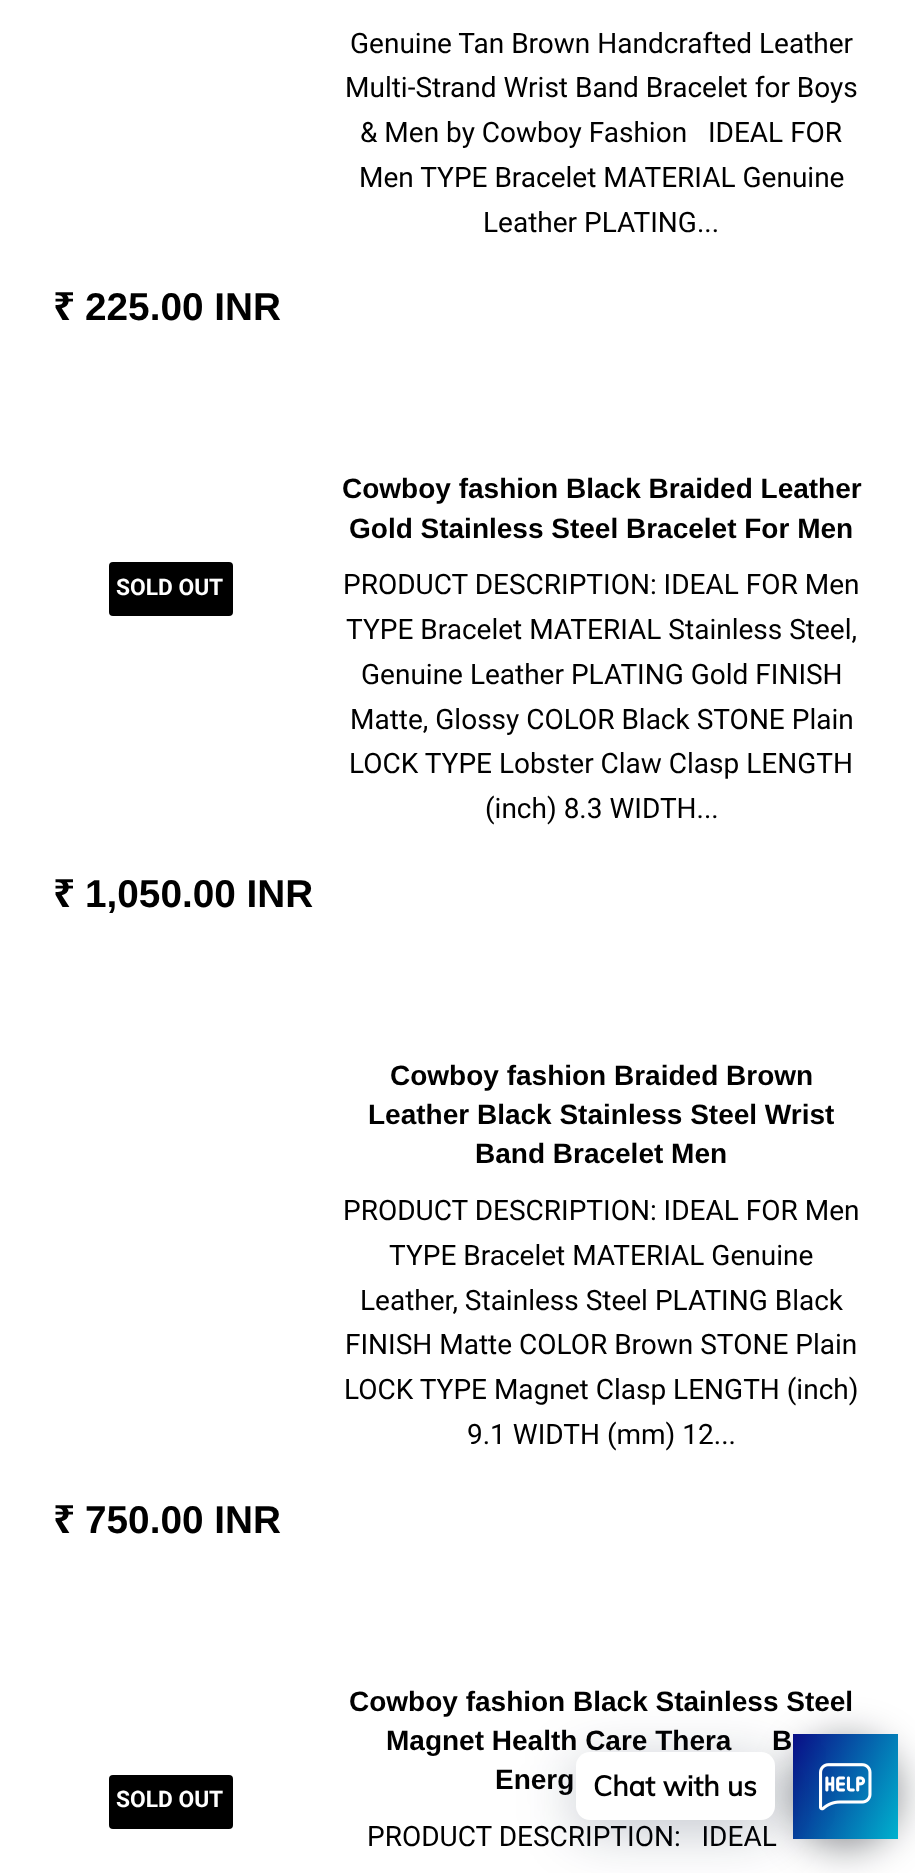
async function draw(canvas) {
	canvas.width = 915;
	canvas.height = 1873;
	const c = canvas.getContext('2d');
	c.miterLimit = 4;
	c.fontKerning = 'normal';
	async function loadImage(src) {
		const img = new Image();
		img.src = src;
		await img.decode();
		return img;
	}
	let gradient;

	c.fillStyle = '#fff';
	c.fillRect(0, 0, 915, 1873);
	c.font = '28px Roboto';
	c.fillStyle = '#000';
	for (const [text, x, y] of [
		['Genuine Tan Brown Handcrafted Leather', 350, 53],
		['Multi-Strand Wrist Band Bracelet for Boys', 345, 97],
		['& Men by Cowboy Fashion   IDEAL FOR', 360, 142],
		['Men TYPE Bracelet MATERIAL Genuine', 359, 187],
		['Leather PLATING...', 483, 232],
	]) {
		c.fillText(text, x, y);
	}
	c.font = 'bold 38.75px Noto Sans';
	c.fillText('₹', 53, 320);
	c.font = 'bold 38.75px Liberation Sans';
	c.fillText('225.00 INR', 85, 320);
	c.beginPath();
	c.roundRect(109, 562, 124, 54, 4);
	c.fill();
	c.font = 'bold 22.75px Roboto';
	c.fillStyle = '#fff';
	c.fillText('SOLD OUT', 116, 595);
	c.font = 'bold 28px Liberation Sans';
	c.fillStyle = '#000';
	c.fillText('Cowboy fashion Black Braided Leather', 342, 498);
	c.fillText('Gold Stainless Steel Bracelet For Men', 349, 538);
	c.font = '28px Roboto';
	for (const [text, x, y] of [
		['PRODUCT DESCRIPTION: IDEAL FOR Men', 343, 594],
		['TYPE Bracelet MATERIAL Stainless Steel,', 346, 639],
		['Genuine Leather PLATING Gold FINISH', 361, 684],
		['Matte, Glossy COLOR Black STONE Plain', 350, 729],
		['LOCK TYPE Lobster Claw Clasp LENGTH', 349, 773],
		['(inch) 8.3 WIDTH...', 485, 818],
	]) {
		c.fillText(text, x, y);
	}
	c.font = 'bold 38.75px Noto Sans';
	c.fillText('₹', 53, 907);
	c.font = 'bold 38.75px Liberation Sans';
	c.fillText('1,050.00 INR', 85, 907);
	c.font = 'bold 28px Liberation Sans';
	for (const [text, x, y] of [
		['Cowboy fashion Braided Brown', 390, 1085],
		['Leather Black Stainless Steel Wrist', 368, 1124],
		['Band Bracelet Men', 475, 1163],
	]) {
		c.fillText(text, x, y);
	}
	c.font = '28px Roboto';
	for (const [text, x, y] of [
		['PRODUCT DESCRIPTION: IDEAL FOR Men', 343, 1220],
		['TYPE Bracelet MATERIAL Genuine', 389, 1265],
		['Leather, Stainless Steel PLATING Black', 360, 1310],
		['FINISH Matte COLOR Brown STONE Plain', 345, 1354],
		['LOCK TYPE Magnet Clasp LENGTH (inch)', 344, 1399],
		['9.1 WIDTH (mm) 12...', 467, 1444],
	]) {
		c.fillText(text, x, y);
	}
	c.font = 'bold 38.75px Noto Sans';
	c.fillText('₹', 53, 1533);
	c.font = 'bold 38.75px Liberation Sans';
	c.fillText('750.00 INR', 85, 1533);
	c.beginPath();
	c.roundRect(109, 1775, 124, 54, 4);
	c.fill();
	c.font = 'bold 22.75px Roboto';
	c.fillStyle = '#fff';
	c.fillText('SOLD OUT', 116, 1807);
	c.font = 'bold 28px Liberation Sans';
	c.fillStyle = '#000';
	for (const [text, x, y] of [
		['Cowboy fashion Black Stainless Steel', 349, 1711],
		['Magnet Health Care Thera', 386, 1750],
		['B', 772, 1750],
		['Energ', 495, 1789],
	]) {
		c.fillText(text, x, y);
	}
	c.font = '28px Roboto';
	c.fillText('PRODUCT DESCRIPTION:   IDEAL', 367, 1846);
	c.fillStyle = '#02061080';
	c.filter = 'blur(21px)';
	c.beginPath();
	c.roundRect(793, 1741, 105, 105, 52.5);
	c.fill();
	c.filter = 'none';
	gradient = c.createLinearGradient(782, 1757, 908, 1816);
	gradient.addColorStop(0, '#0a0e88');
	gradient.addColorStop(1, '#00b1ce');
	c.fillStyle = gradient;
	c.fillRect(793, 1734, 105, 105);
	c.fillStyle = '#00122e3d';
	c.filter = 'blur(28px)';
	c.beginPath();
	c.roundRect(576, 1762, 199, 69, 14);
	c.fill();
	c.filter = 'none';
	c.fillStyle = '#fff';
	c.beginPath();
	c.roundRect(576, 1752, 199, 68, 14);
	c.fill();
	c.font = 'bold 28px Muli';
	c.fillStyle = '#000';
	c.fillText('Chat with us', 593, 1796);
	c.drawImage(await loadImage('img1.png'), 819, 1763, 53, 48);
}

draw(document.querySelector('canvas'));
